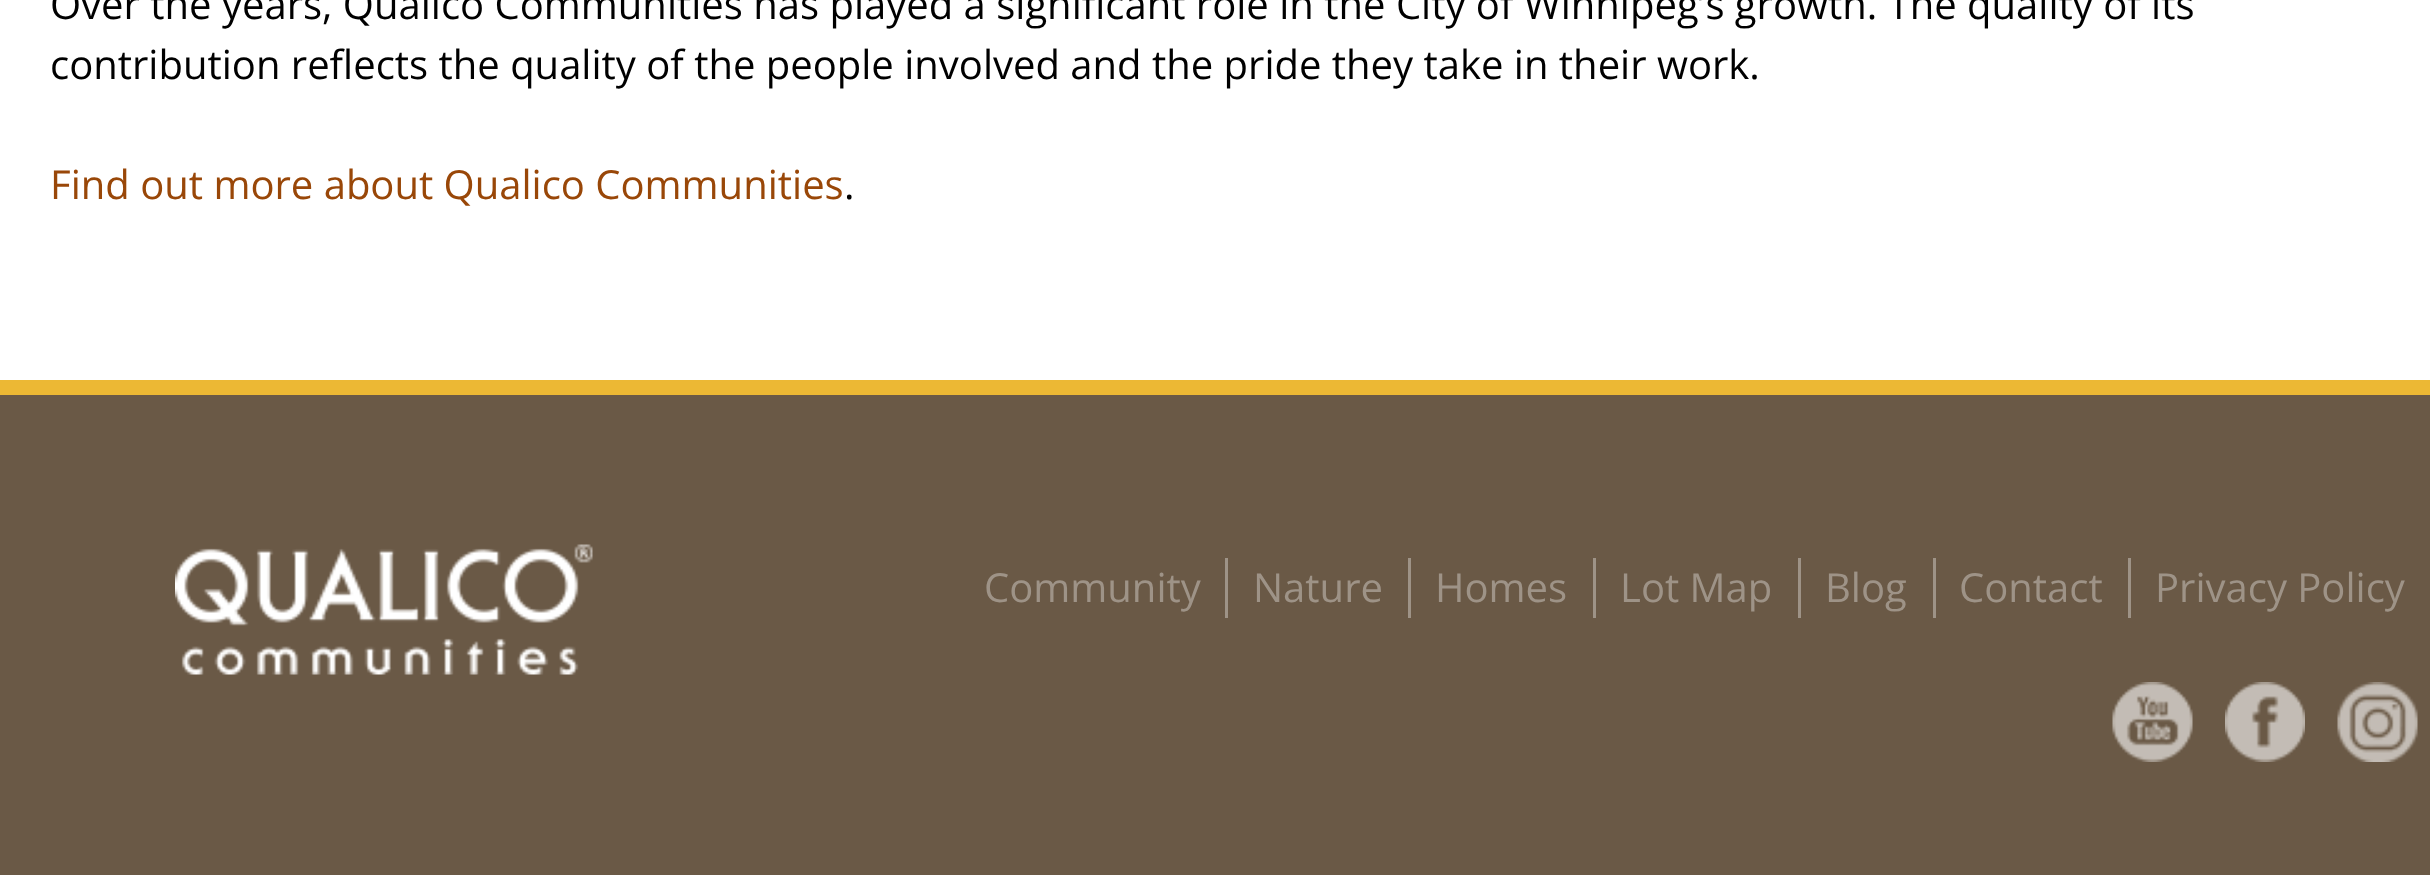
async function draw(canvas) {
	canvas.width = 2430;
	canvas.height = 882;
	const c = canvas.getContext('2d');
	c.miterLimit = 4;
	c.fontKerning = 'normal';
	async function loadImage(src) {
		const img = new Image();
		img.src = src;
		await img.decode();
		return img;
	}

	c.fillStyle = '#fff';
	c.fillRect(0, 0, 2430, 882);
	c.font = '40px Open Sans';
	c.fillStyle = '#000';
	c.fillText('Over the years, Qualico Communities has played a significant role in the City of Winnipeg’s growth. The quality of its', 50, 19);
	c.fillText('contribution reflects the quality of the people involved and the pride they take in their work.', 50, 79);
	c.fillStyle = '#994708';
	c.fillText('Find out more about Qualico Communities', 50, 199);
	c.fillStyle = '#000';
	c.fillText('.', 844, 199);
	c.fillStyle = '#6a5946';
	c.fillRect(0, 395, 2430, 480);
	c.fillStyle = '#ecb834';
	c.fillRect(0, 380, 2430, 15);
	c.drawImage(await loadImage('img1.png'), 175, 544, 418, 131);
	c.fillStyle = '#9e9387';
	c.fillRect(1225, 558, 3, 60);
	c.fillText('Community', 984, 602);
	c.fillRect(1408, 558, 3, 60);
	c.fillText('Nature', 1253, 602);
	c.fillRect(1593, 558, 3, 60);
	c.fillText('Homes', 1435, 602);
	c.fillRect(1798, 558, 3, 60);
	c.fillText('Lot Map', 1620, 602);
	c.fillRect(1933, 558, 3, 60);
	c.fillText('Blog', 1825, 602);
	c.fillRect(2128, 558, 3, 60);
	c.fillText('Contact', 1959, 602);
	c.fillText('Privacy Policy', 2155, 602);
	c.drawImage(await loadImage('img2.png'), 2112, 682, 81, 80);
	c.drawImage(await loadImage('img3.png'), 2225, 682, 80, 80);
	c.drawImage(await loadImage('img4.png'), 2337, 682, 81, 80);
}

draw(document.querySelector('canvas'));
